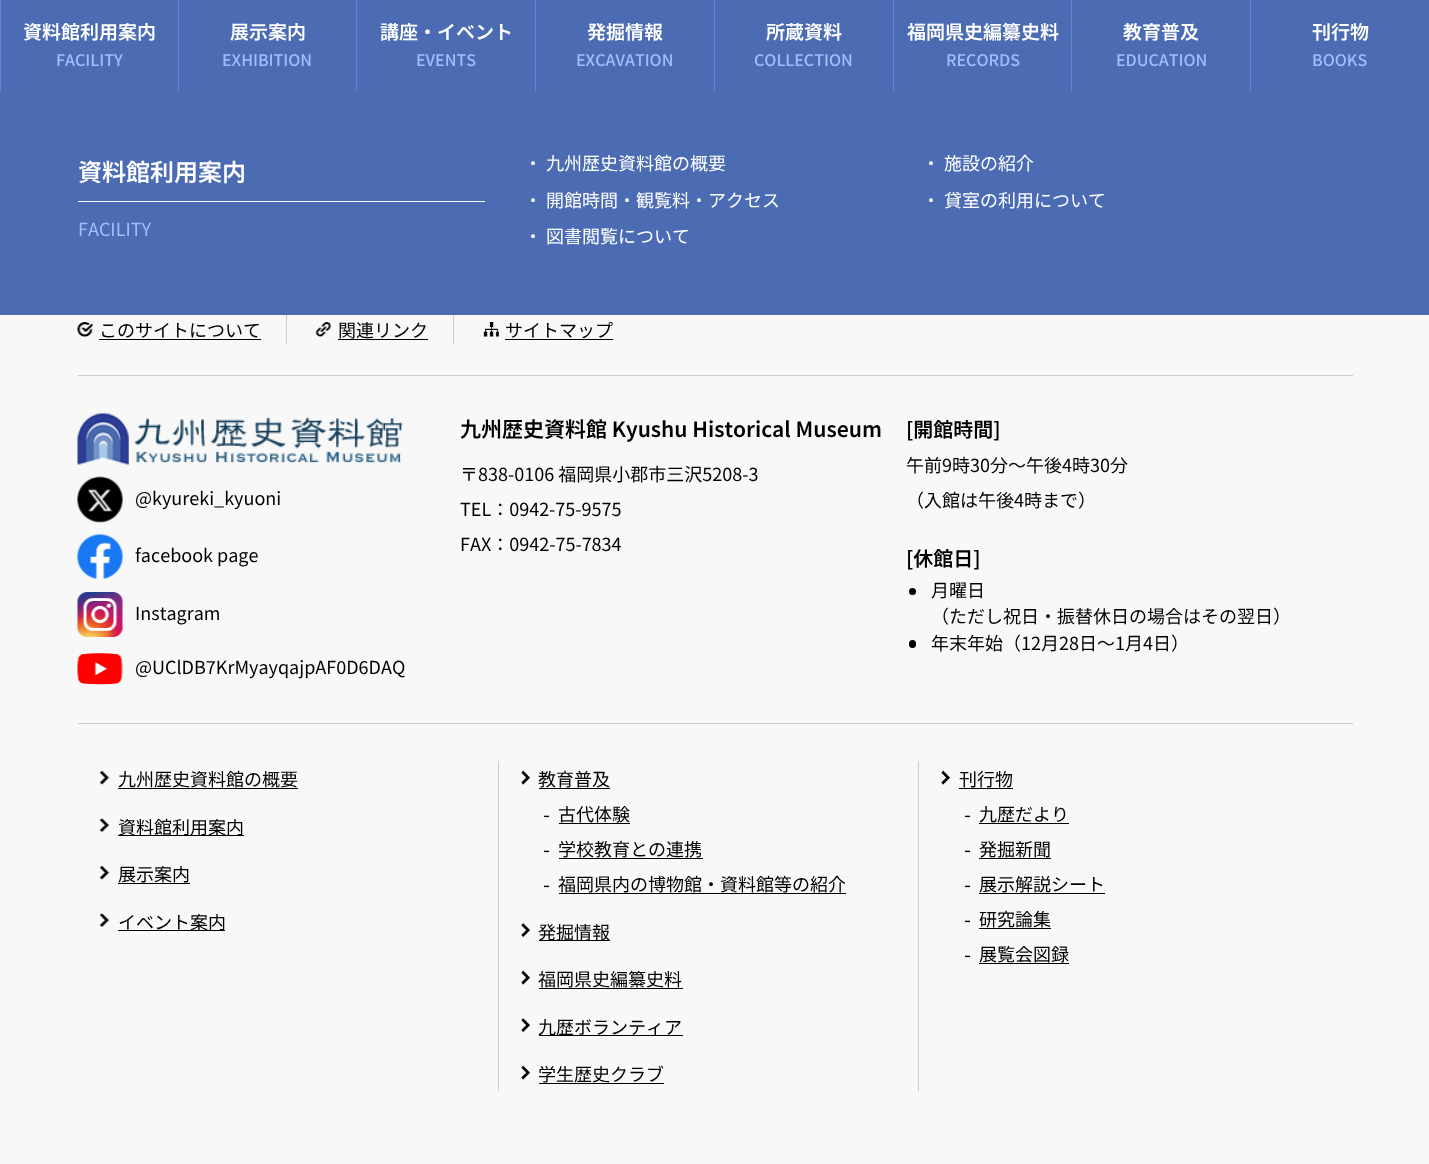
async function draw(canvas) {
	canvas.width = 1429;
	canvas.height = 1164;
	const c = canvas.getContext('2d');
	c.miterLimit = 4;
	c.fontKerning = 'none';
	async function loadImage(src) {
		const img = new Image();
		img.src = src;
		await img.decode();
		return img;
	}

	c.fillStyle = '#4b6cb3';
	c.fillRect(0, 0, 1429, 1164);
	c.fillStyle = '#5d84d9';
	c.fillRect(178, 0, 1, 91);
	c.fillRect(0, 0, 1, 91);
	c.font = '600 19px Noto Sans JP';
	c.fillStyle = '#fff';
	c.fillText('資料館利用案内', 23, 39);
	c.font = '500 16px Noto Sans JP';
	c.fillStyle = '#9fbeff';
	c.fillText('FACILITY', 56, 66);
	for (const [x, y, w, h, color] of [
		[0, 315, 1429, 849, '#f8f8f8'],
		[286, 314, 1, 30, '#ccc'],
		[453, 314, 1, 30, '#ccc'],
		[286, 314, 168, 1, '#4b6cb3'],
		[78, 201, 407, 1, '#fff'],
	]) {
		c.fillStyle = color;
		c.fillRect(x, y, w, h);
	}
	c.font = '600 24px Noto Sans JP';
	c.fillText('資料館利用案内', 78, 181);
	c.font = '18px Noto Sans JP';
	c.fillStyle = '#9fbeff';
	c.fillText('FACILITY', 78, 236);
	c.fillStyle = '#fff';
	for (const [text, x, y] of [
		['・', 524, 170],
		['九州歴史資料館の概要', 546, 170],
		['・', 922, 170],
		['施設の紹介', 944, 170],
		['・', 524, 207],
		['開館時間・観覧料・アクセス', 546, 207],
		['・', 922, 207],
		['貸室の利用について', 944, 207],
		['・', 524, 243],
		['図書閲覧について', 546, 243],
	]) {
		c.fillText(text, x, y);
	}
	c.fillStyle = '#5d84d9';
	c.fillRect(356, 0, 1, 91);
	c.font = '600 19px Noto Sans JP';
	c.fillStyle = '#fff';
	c.fillText('展示案内', 230, 39);
	c.font = '500 16px Noto Sans JP';
	c.fillStyle = '#9fbeff';
	c.fillText('EXHIBITION', 222, 66);
	c.fillStyle = '#5d84d9';
	c.fillRect(535, 0, 1, 91);
	c.font = '600 19px Noto Sans JP';
	c.fillStyle = '#fff';
	c.fillText('講座・イベント', 380, 39);
	c.font = '500 16px Noto Sans JP';
	c.fillStyle = '#9fbeff';
	c.fillText('EVENTS', 416, 66);
	c.fillStyle = '#5d84d9';
	c.fillRect(714, 0, 1, 91);
	c.font = '600 19px Noto Sans JP';
	c.fillStyle = '#fff';
	c.fillText('発掘情報', 587, 39);
	c.font = '500 16px Noto Sans JP';
	c.fillStyle = '#9fbeff';
	c.fillText('EXCAVATION', 576, 66);
	c.fillStyle = '#5d84d9';
	c.fillRect(893, 0, 1, 91);
	c.font = '600 19px Noto Sans JP';
	c.fillStyle = '#fff';
	c.fillText('所蔵資料', 766, 39);
	c.font = '500 16px Noto Sans JP';
	c.fillStyle = '#9fbeff';
	c.fillText('COLLECTION', 754, 66);
	c.fillStyle = '#5d84d9';
	c.fillRect(1071, 0, 1, 91);
	c.font = '600 19px Noto Sans JP';
	c.fillStyle = '#fff';
	c.fillText('福岡県史編纂史料', 907, 39);
	c.font = '500 16px Noto Sans JP';
	c.fillStyle = '#9fbeff';
	c.fillText('RECORDS', 946, 66);
	c.fillStyle = '#5d84d9';
	c.fillRect(1250, 0, 1, 91);
	c.font = '600 19px Noto Sans JP';
	c.fillStyle = '#fff';
	c.fillText('教育普及', 1123, 39);
	c.font = '500 16px Noto Sans JP';
	c.fillStyle = '#9fbeff';
	c.fillText('EDUCATION', 1116, 66);
	c.font = '600 19px Noto Sans JP';
	c.fillStyle = '#fff';
	c.fillText('刊行物', 1312, 39);
	c.font = '500 16px Noto Sans JP';
	c.fillStyle = '#9fbeff';
	c.fillText('BOOKS', 1312, 66);
	c.fillStyle = '#ccc';
	c.fillRect(78, 375, 1275, 1);
	c.drawImage(await loadImage('img1.png'), 77, 322, 16, 15);
	c.font = '18px Noto Sans JP';
	c.fillStyle = '#000';
	c.fillText('このサイトについて', 99, 337);
	c.fillRect(99, 339, 162, 1);
	c.drawImage(await loadImage('img2.png'), 315, 322, 16, 15);
	c.fillText('関連リンク', 338, 337);
	c.fillRect(338, 339, 90, 1);
	c.drawImage(await loadImage('img3.png'), 483, 322, 16, 15);
	c.fillText('サイトマップ', 505, 337);
	c.fillRect(505, 339, 108, 1);
	c.drawImage(await loadImage('img4.png'), 77, 413, 326, 52);
	c.drawImage(await loadImage('img5.png'), 77, 476, 46, 47);
	c.fillText('@kyureki_kyuoni', 135, 505);
	c.drawImage(await loadImage('img6.png'), 77, 533, 46, 46);
	c.fillText('facebook page', 135, 562);
	c.drawImage(await loadImage('img7.png'), 77, 592, 46, 45);
	c.fillText('Instagram', 135, 620);
	c.drawImage(await loadImage('img8.png'), 77, 653, 46, 32);
	c.fillText('@UClDB7KrMyayqajpAF0D6DAQ', 135, 674);
	c.font = '600 21px Noto Sans JP';
	c.fillText('九州歴史資料館 Kyushu Historical Museum', 460, 437);
	c.font = '18px Noto Sans JP';
	for (const [text, x, y] of [
		['〒838-0106 福岡県小郡市三沢5208-3', 460, 481],
		['TEL：0942-75-9575', 460, 516],
		['FAX：0942-75-7834', 460, 551],
	]) {
		c.fillText(text, x, y);
	}
	c.font = '600 20px Noto Sans JP';
	c.fillText('[開館時間]', 906, 437);
	c.font = '18px Noto Sans JP';
	c.fillText('午前9時30分～午後4時30分', 906, 472);
	c.fillText('（入館は午後4時まで）', 906, 507);
	c.font = '600 20px Noto Sans JP';
	c.fillText('[休館日]', 906, 566);
	c.beginPath();
	c.arc(912.5, 591.5, 3.5, 0, 2 * Math.PI);
	c.fill();
	c.font = '18px Noto Sans JP';
	c.fillText('月曜日', 931, 597);
	c.fillText('（ただし祝日・振替休日の場合はその翌日）', 931, 623);
	c.beginPath();
	c.roundRect(909, 640, 7, 8, 3.5);
	c.fill();
	c.fillText('年末年始（12月28日～1月4日）', 931, 650);
	c.fillStyle = '#ccc';
	c.fillRect(78, 723, 1275, 1);
	c.fillRect(498, 761, 1, 330);
	c.drawImage(await loadImage('img9.png'), 99, 770, 11, 15);
	c.fillStyle = '#000';
	c.fillText('九州歴史資料館の概要', 118, 786);
	c.fillRect(118, 788, 180, 1);
	c.drawImage(await loadImage('img10.png'), 99, 818, 11, 14);
	c.fillRect(118, 835, 126, 1);
	c.fillText('資料館利用案内', 118, 834);
	c.drawImage(await loadImage('img9.png'), 99, 865, 11, 15);
	c.fillText('展示案内', 118, 881);
	c.fillRect(118, 883, 72, 1);
	c.drawImage(await loadImage('img10.png'), 99, 913, 11, 14);
	c.fillRect(118, 930, 107, 1);
	c.fillText('イベント案内', 118, 929);
	c.fillStyle = '#ccc';
	c.fillRect(918, 761, 1, 330);
	c.drawImage(await loadImage('img11.png'), 521, 770, 9, 15);
	c.fillStyle = '#000';
	c.fillText('教育普及', 538, 786);
	c.fillRect(539, 788, 71, 1);
	c.font = '20px Noto Sans JP';
	c.fillText('-', 543, 822);
	c.font = '18px Noto Sans JP';
	c.fillText('古代体験', 558, 821);
	c.fillRect(559, 823, 71, 1);
	c.font = '20px Noto Sans JP';
	c.fillText('-', 543, 857);
	c.font = '18px Noto Sans JP';
	c.fillText('学校教育との連携', 558, 856);
	c.fillRect(559, 858, 144, 1);
	c.font = '20px Noto Sans JP';
	c.fillText('-', 543, 892);
	c.font = '18px Noto Sans JP';
	c.fillText('福岡県内の博物館・資料館等の紹介', 558, 891);
	c.fillRect(559, 893, 287, 1);
	c.drawImage(await loadImage('img12.png'), 521, 923, 9, 14);
	c.fillRect(539, 940, 71, 1);
	c.fillText('発掘情報', 538, 939);
	c.drawImage(await loadImage('img11.png'), 521, 970, 9, 15);
	c.fillText('福岡県史編纂史料', 538, 986);
	c.fillRect(539, 988, 144, 1);
	c.drawImage(await loadImage('img12.png'), 521, 1018, 9, 14);
	c.fillRect(539, 1035, 144, 1);
	c.fillText('九歴ボランティア', 538, 1034);
	c.drawImage(await loadImage('img11.png'), 521, 1065, 9, 15);
	c.fillText('学生歴史クラブ', 538, 1081);
	c.fillRect(539, 1083, 125, 1);
	c.drawImage(await loadImage('img11.png'), 941, 770, 9, 15);
	c.fillText('刊行物', 959, 786);
	c.fillRect(959, 788, 54, 1);
	c.font = '20px Noto Sans JP';
	c.fillText('-', 964, 822);
	c.font = '18px Noto Sans JP';
	c.fillText('九歴だより', 979, 821);
	c.fillRect(979, 823, 90, 1);
	c.font = '20px Noto Sans JP';
	c.fillText('-', 964, 857);
	c.font = '18px Noto Sans JP';
	c.fillText('発掘新聞', 979, 856);
	c.fillRect(979, 858, 72, 1);
	c.font = '20px Noto Sans JP';
	c.fillText('-', 964, 892);
	c.font = '18px Noto Sans JP';
	c.fillText('展示解説シート', 979, 891);
	c.fillRect(979, 893, 126, 1);
	c.font = '20px Noto Sans JP';
	c.fillText('-', 964, 927);
	c.font = '18px Noto Sans JP';
	c.fillText('研究論集', 979, 926);
	c.fillRect(979, 928, 72, 1);
	c.font = '20px Noto Sans JP';
	c.fillText('-', 964, 962);
	c.font = '18px Noto Sans JP';
	c.fillText('展覧会図録', 979, 961);
	c.fillRect(979, 963, 90, 1);
}

draw(document.querySelector('canvas'));
